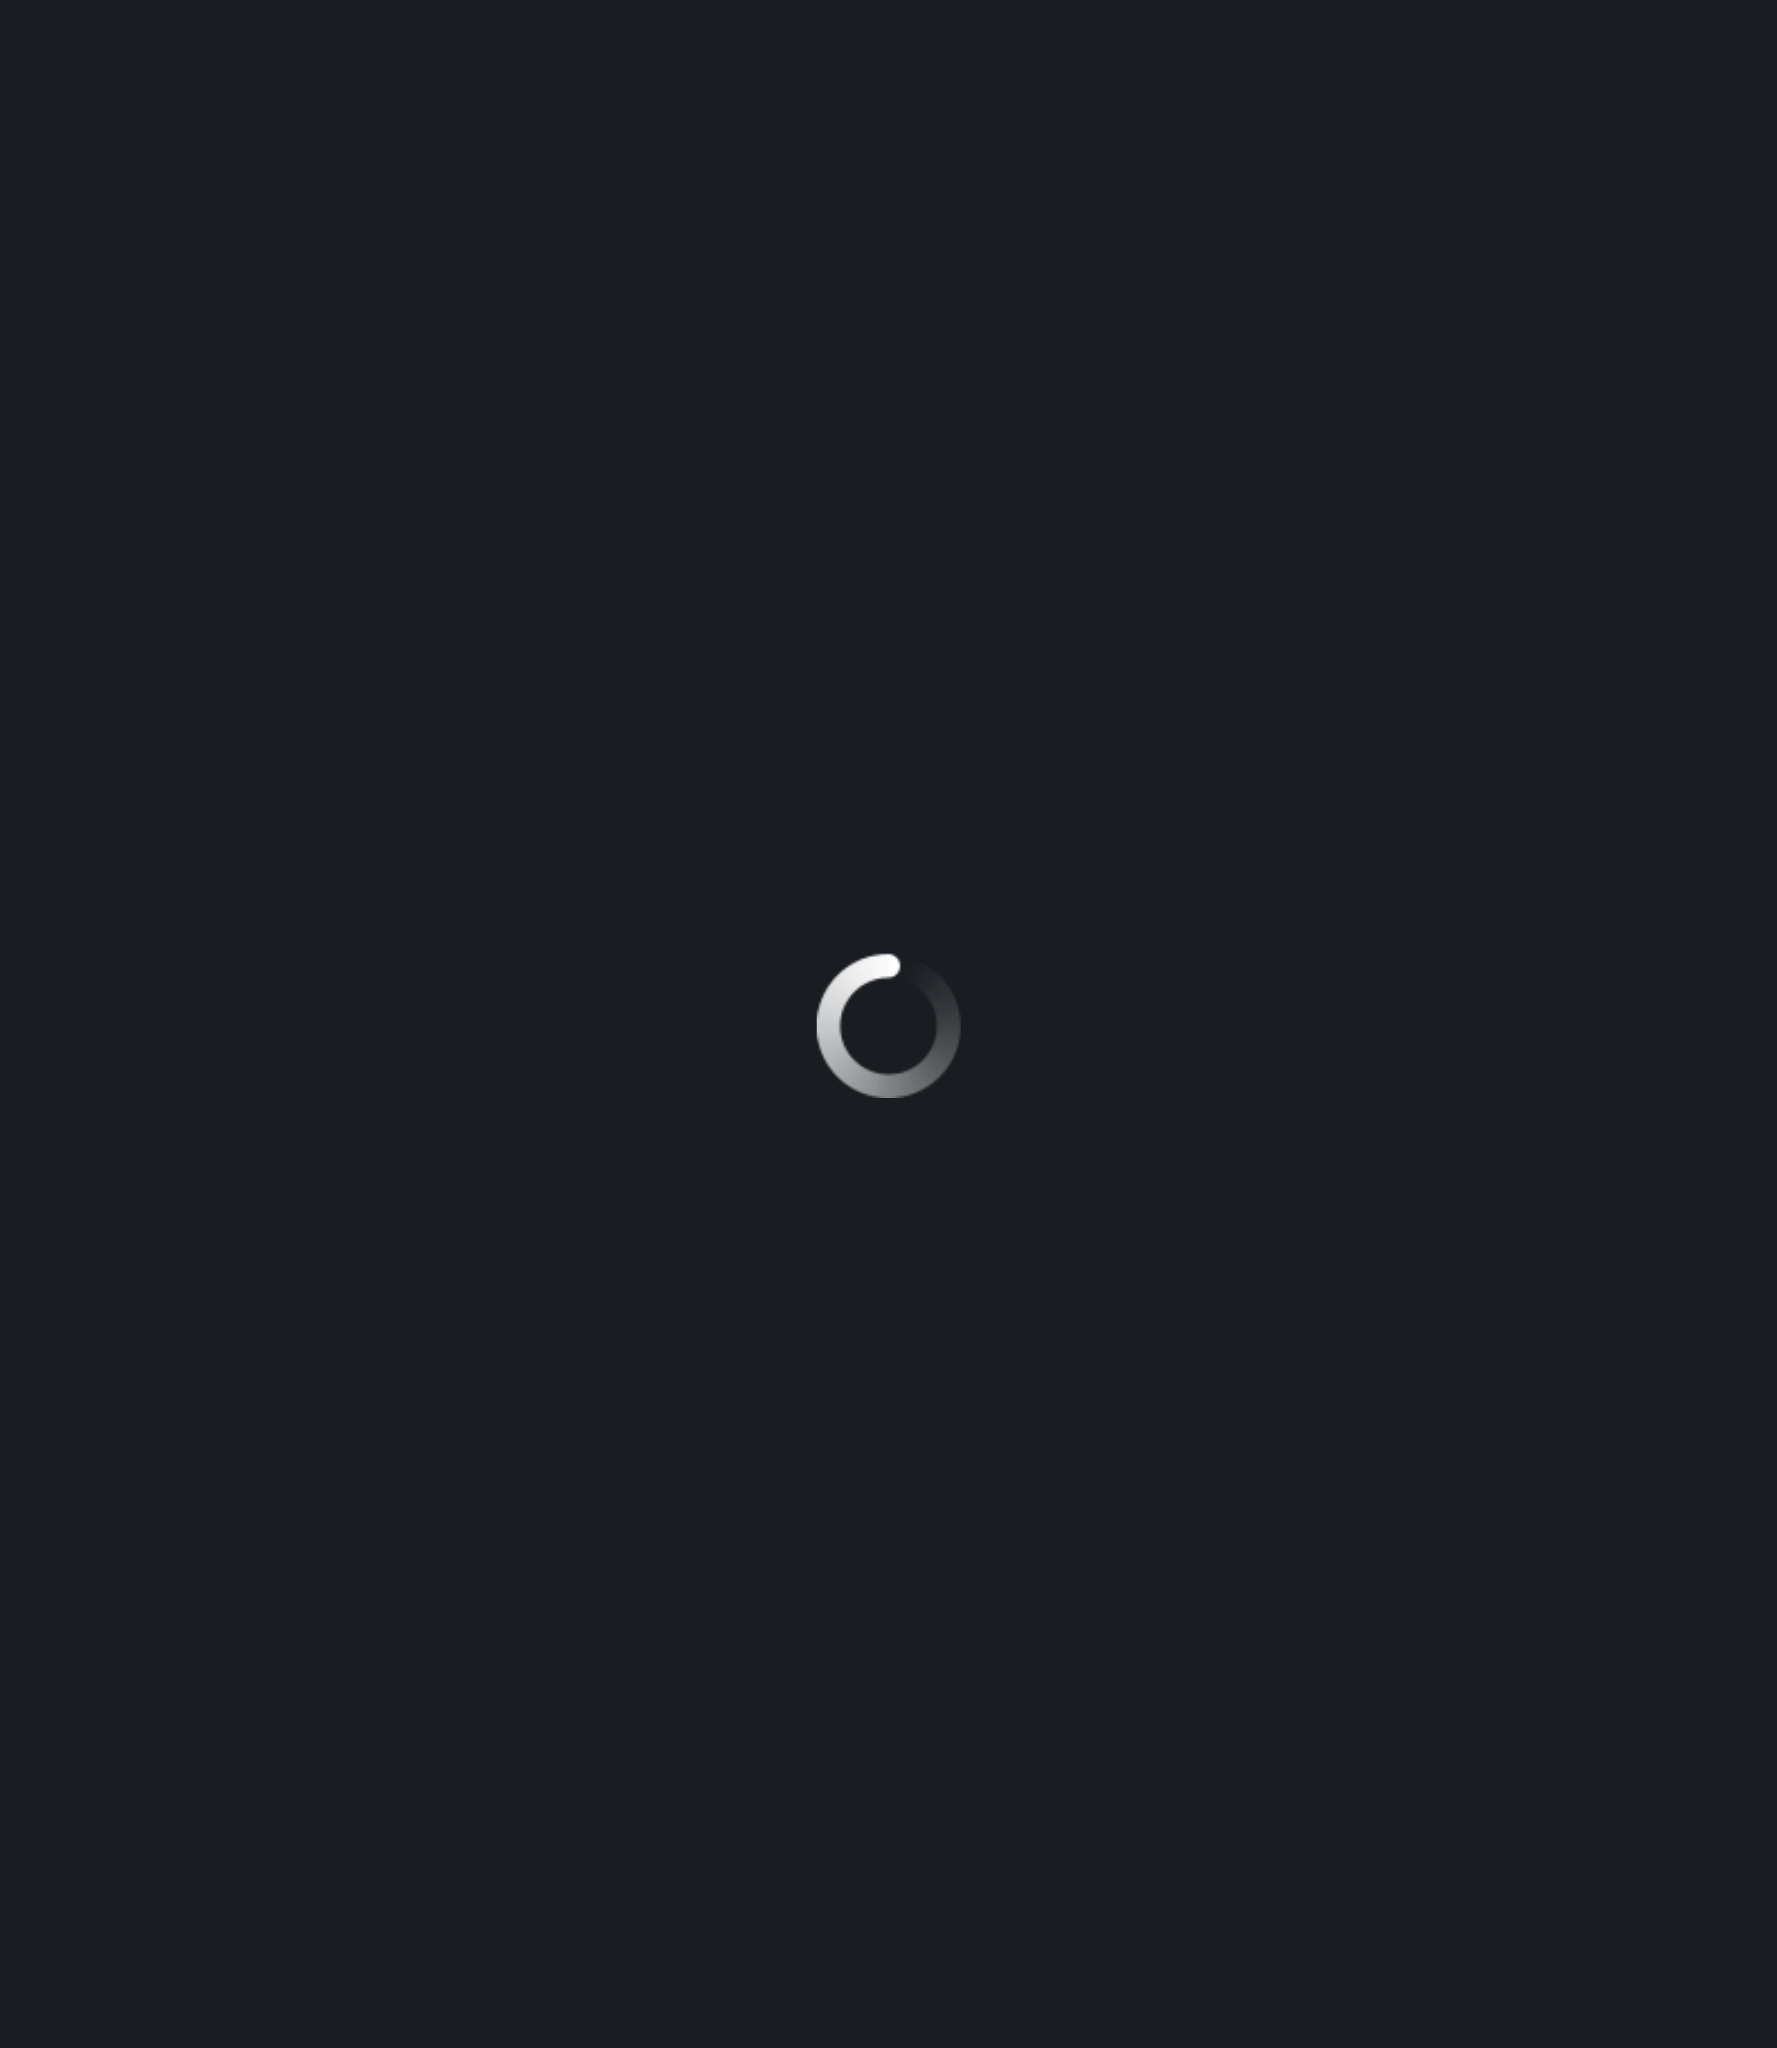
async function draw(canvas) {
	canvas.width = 1777;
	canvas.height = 2048;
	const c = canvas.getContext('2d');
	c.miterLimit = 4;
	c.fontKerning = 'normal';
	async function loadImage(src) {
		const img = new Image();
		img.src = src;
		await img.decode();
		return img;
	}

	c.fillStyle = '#191d21';
	c.fillRect(0, 0, 1777, 2048);
	c.drawImage(await loadImage('img1.png'), 816, 953, 145, 145);
}

draw(document.querySelector('canvas'));
